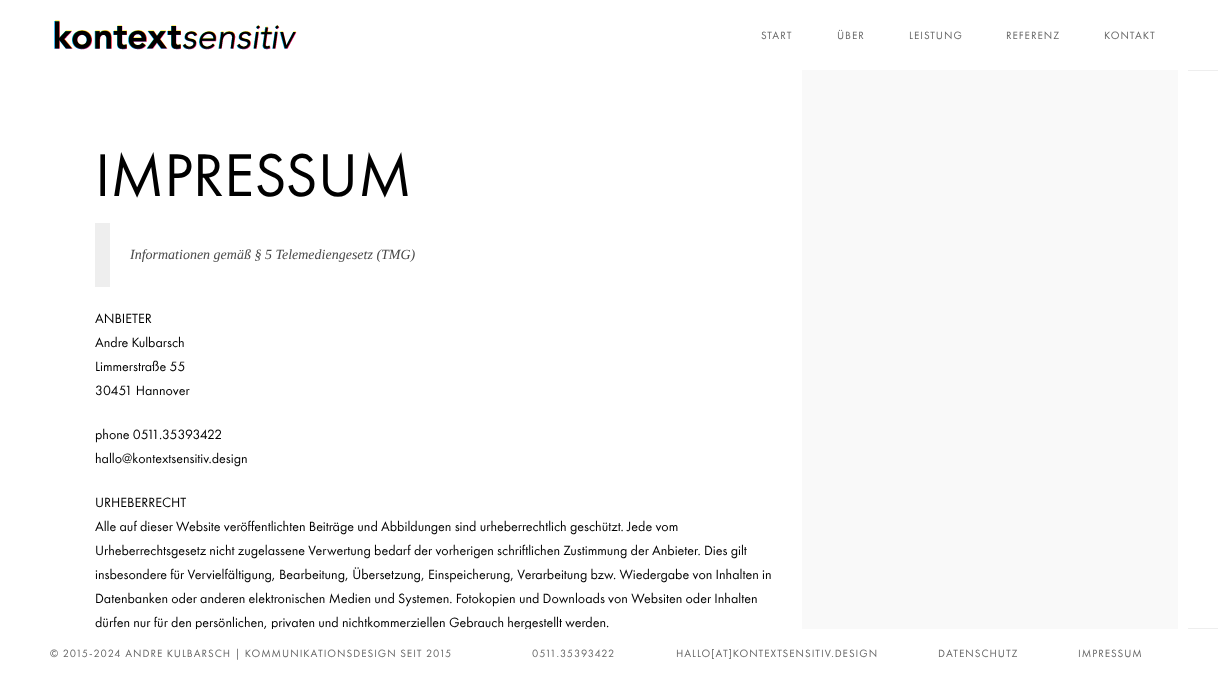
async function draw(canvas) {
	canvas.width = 1228;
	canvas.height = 679;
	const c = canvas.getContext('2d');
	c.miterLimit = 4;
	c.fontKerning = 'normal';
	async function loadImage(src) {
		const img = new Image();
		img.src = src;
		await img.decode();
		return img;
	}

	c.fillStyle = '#fff';
	c.fillRect(0, 0, 1228, 679);
	c.drawImage(await loadImage('img1.png'), 54, 20, 243, 30);
	c.letterSpacing = '1px';
	c.font = '11px Futura PT';
	c.fillStyle = '#666';
	for (const [text, x, y] of [
		['START', 761, 39],
		['ÜBER', 837, 39],
		['LEISTUNG', 909, 39],
		['REFERENZ', 1006, 39],
		['KONTAKT', 1104, 39],
	]) {
		c.fillText(text, x, y);
	}
	c.fillStyle = '#f9f9f9';
	c.fillRect(802, 70, 376, 559);
	c.letterSpacing = '0px';
	c.font = '62.5px Futura PT';
	c.fillStyle = '#000';
	c.fillText('IMPRESSUM', 95, 196);
	c.fillStyle = '#eee';
	c.fillRect(95, 223, 15, 64);
	c.font = 'italic 14px Liberation Serif';
	c.fillStyle = '#494949';
	c.fillText('Informationen gemäß § 5 Telemediengesetz (TMG)', 130, 259);
	c.font = '14px Futura PT';
	c.fillStyle = '#000';
	for (const [text, x, y] of [
		['ANBIETER', 95, 323],
		['Andre Kulbarsch', 95, 347],
		['Limmerstraße 55', 95, 371],
		['30451 Hannover', 95, 395],
		['phone 0511.35393422', 95, 439],
		['hallo@kontextsensitiv.design', 95, 463],
		['URHEBERRECHT', 95, 507],
		['Alle auf dieser Website veröffentlichten Beiträge und Abbildungen sind urheberrechtlich geschützt. Jede vom', 95, 531],
		['Urheberrechtsgesetz nicht zugelassene Verwertung bedarf der vorherigen schriftlichen Zustimmung der Anbieter. Dies gilt', 95, 555],
		['insbesondere für Vervielfältigung, Bearbeitung, Übersetzung, Einspeicherung, Verarbeitung bzw. Wiedergabe von Inhalten in', 95, 579],
		['Datenbanken oder anderen elektronischen Medien und Systemen. Fotokopien und Downloads von Websiten oder Inhalten', 95, 603],
		['dürfen nur für den persönlichen, privaten und nichtkommerziellen Gebrauch hergestellt werden.', 95, 627],
	]) {
		c.fillText(text, x, y);
	}
	for (const [x, y, w, h, color] of [
		[1188, 70, 30, 1, '#eee'],
		[1188, 628, 30, 1, '#eee'],
		[196, 629, 335, 2, '#fff'],
	]) {
		c.fillStyle = color;
		c.fillRect(x, y, w, h);
	}
	c.letterSpacing = '1px';
	c.font = '11px Futura PT';
	c.fillStyle = '#666';
	for (const [text, x, y] of [
		['© 2015-2024 ANDRE KULBARSCH | KOMMUNIKATIONSDESIGN SEIT 2015', 50, 657],
		['0511.35393422', 532, 657],
		['HALLO[AT]KONTEXTSENSITIV.DESIGN', 676, 657],
		['DATENSCHUTZ', 938, 657],
		['IMPRESSUM', 1078, 657],
	]) {
		c.fillText(text, x, y);
	}
}

draw(document.querySelector('canvas'));
